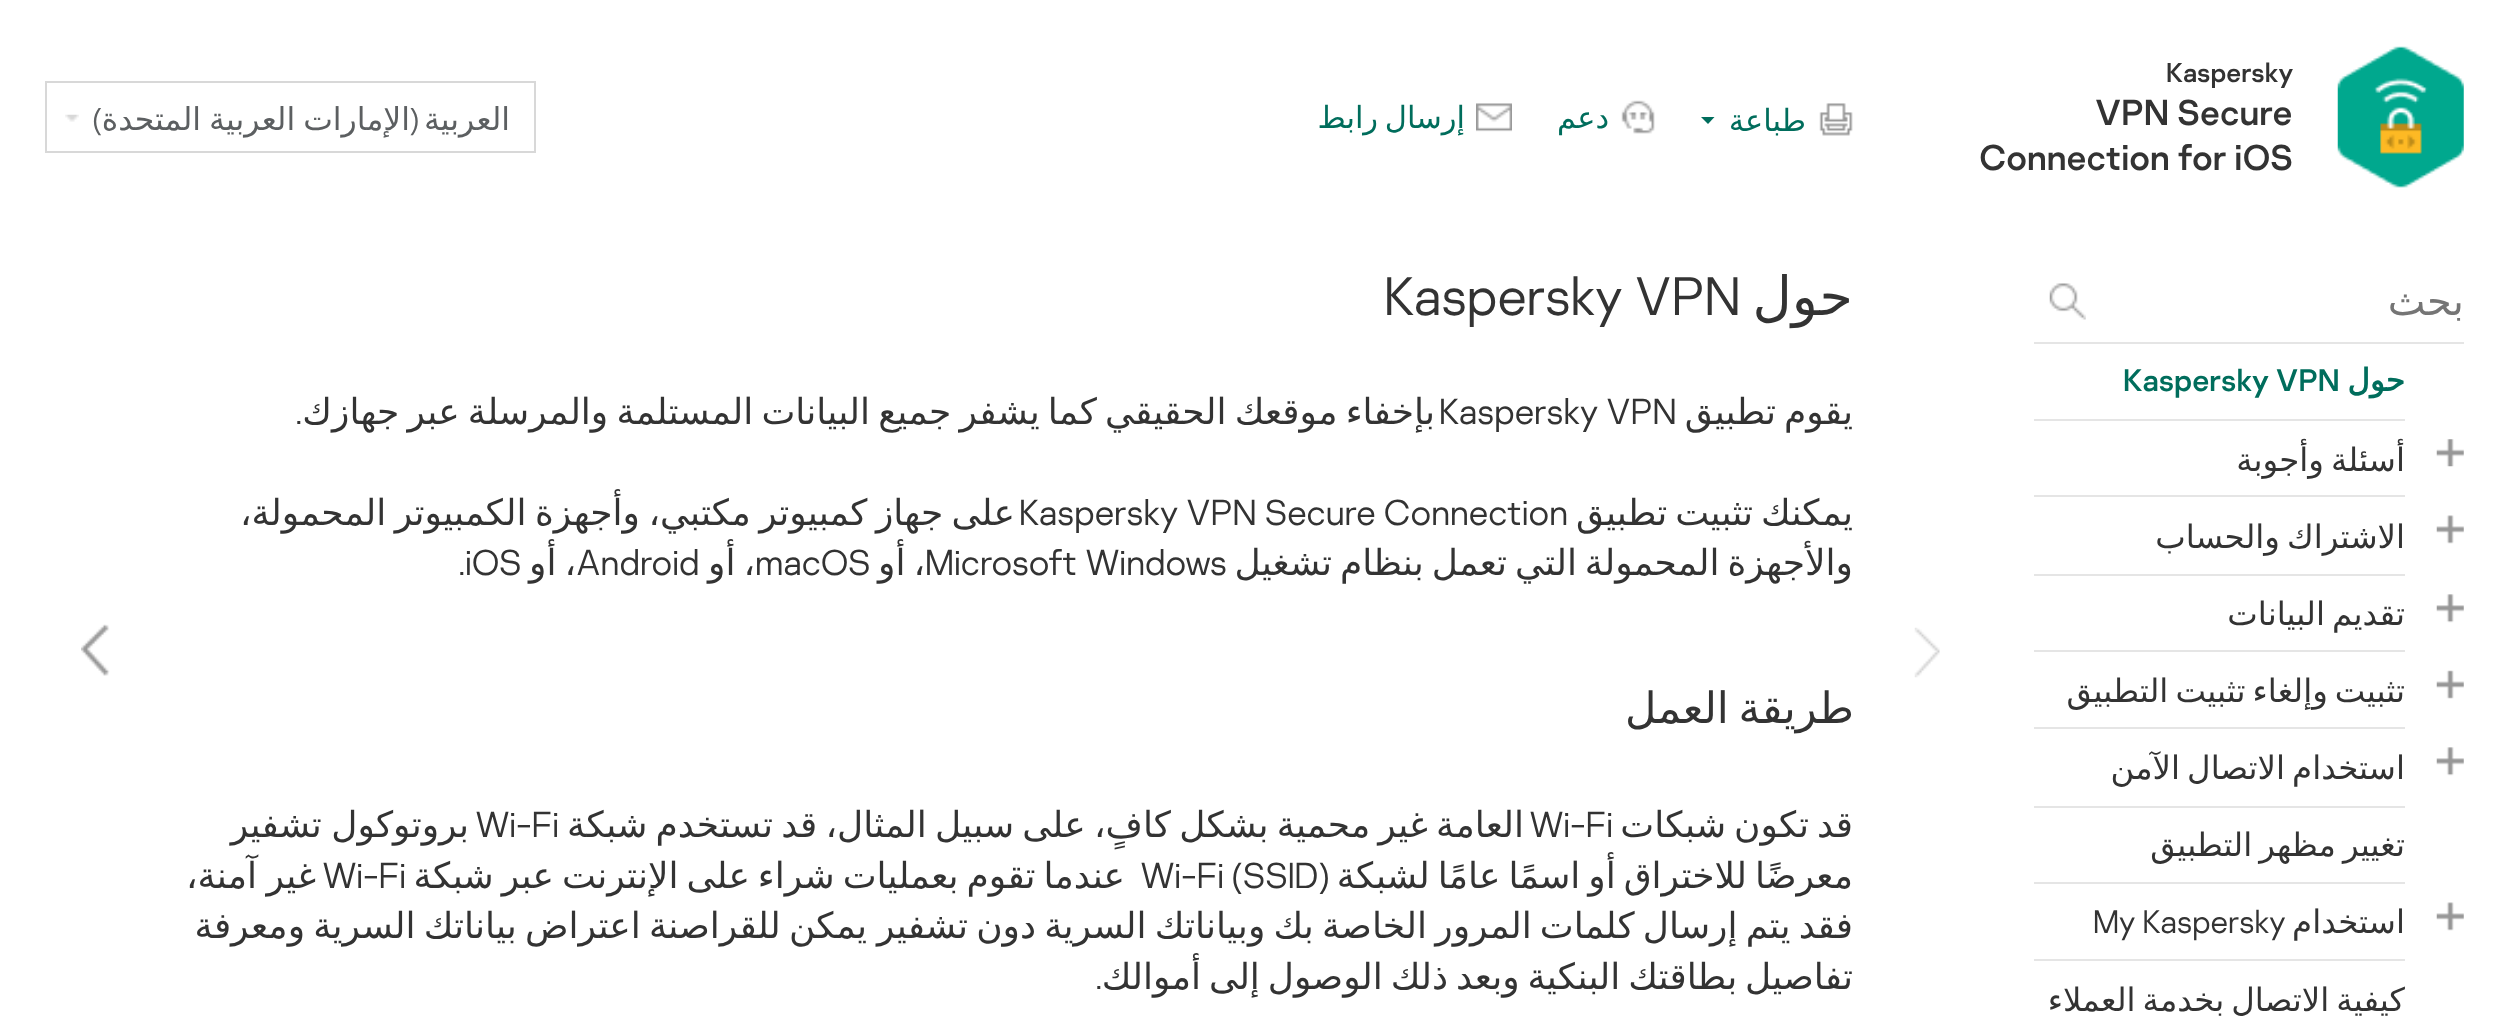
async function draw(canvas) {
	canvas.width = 2508;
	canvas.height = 1018;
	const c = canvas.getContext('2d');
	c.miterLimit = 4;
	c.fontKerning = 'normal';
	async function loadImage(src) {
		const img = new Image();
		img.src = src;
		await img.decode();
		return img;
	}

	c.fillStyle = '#fff';
	c.fillRect(0, 0, 2508, 1018);
	c.drawImage(await loadImage('img1.png'), 2337, 46, 127, 142);
	c.font = '27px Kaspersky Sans';
	c.fillStyle = '#333';
	c.fillText('Kaspersky', 2166, 82);
	c.font = '36px Kaspersky Sans';
	c.fillText('VPN Secure', 2095, 125);
	c.fillText('Connection for iOS', 1979, 170);
	c.drawImage(await loadImage('img2.png'), 1819, 103, 34, 33);
	c.direction = 'rtl';
	c.font = '30.5px DejaVu Sans';
	c.fillStyle = '#006d5c';
	c.fillText('طباعة', 1806, 131);
	c.beginPath();
	c.moveTo(1701, 117);
	c.lineTo(1714.5, 117);
	c.lineTo(1708, 124);
	c.closePath();
	c.fill();
	c.drawImage(await loadImage('img3.png'), 1621, 100, 34, 34);
	c.fillText('دعم', 1609, 128);
	c.drawImage(await loadImage('img4.png'), 1476, 103, 36, 29);
	c.wordSpacing = '-3px';
	c.fillText('إرسال رابط', 1465, 128);
	c.strokeStyle = '#d8d8d8';
	c.lineWidth = 2;
	c.strokeRect(46, 82, 489, 70);
	c.wordSpacing = '0px';
	c.font = '31.5px DejaVu Sans';
	c.fillStyle = '#5c5f61';
	c.fillText('العربية', 510, 130);
	c.wordSpacing = '-2px';
	c.fillText('الإمارات العربية المتحدة', 410, 130);
	c.wordSpacing = '0px';
	c.font = '300 31.5px Kaspersky Sans';
	c.fillText('(', 419, 130);
	c.fillText(')', 102, 130);
	c.drawImage(await loadImage('img5.png'), 65, 114, 14, 8);
	c.fillStyle = '#e5e5e5';
	c.fillRect(2034, 342, 430, 2);
	c.font = '40px DejaVu Sans';
	c.fillStyle = '#757575';
	c.fillText('بحث', 2464, 315);
	c.drawImage(await loadImage('img6.png'), 2049, 283, 37, 37);
	c.fillStyle = '#e5e5e5';
	c.fillRect(2034, 419, 371, 2);
	c.font = 'bold 31px DejaVu Sans';
	c.fillStyle = '#006d5c';
	c.fillText('حول', 2405, 391);
	c.direction = 'ltr';
	c.font = '31px Kaspersky Sans';
	c.fillText('Kaspersky VPN', 2123, 391);
	c.drawImage(await loadImage('img7.png'), 2436, 439, 28, 28);
	c.fillStyle = '#e5e5e5';
	c.fillRect(2034, 495, 371, 2);
	c.wordSpacing = '-3.25px';
	c.direction = 'rtl';
	c.font = '32.4px DejaVu Sans';
	c.fillStyle = '#333';
	c.fillText('أسئلة وأجوبة', 2405, 471);
	c.drawImage(await loadImage('img8.png'), 2436, 515, 28, 29);
	c.fillStyle = '#e5e5e5';
	c.fillRect(2034, 574, 371, 2);
	c.fillStyle = '#333';
	c.fillText('الاشتراك والحساب', 2405, 548);
	c.drawImage(await loadImage('img9.png'), 2436, 594, 28, 29);
	c.fillStyle = '#e5e5e5';
	c.fillRect(2034, 650, 371, 2);
	c.fillStyle = '#333';
	c.fillText('تقديم البيانات', 2405, 625);
	c.drawImage(await loadImage('img10.png'), 2436, 670, 28, 29);
	c.fillStyle = '#e5e5e5';
	c.fillRect(2034, 727, 371, 2);
	c.fillStyle = '#333';
	c.fillText('تثبيت وإلغاء تثبيت التطبيق', 2405, 702);
	c.drawImage(await loadImage('img9.png'), 2436, 747, 28, 29);
	c.fillStyle = '#e5e5e5';
	c.fillRect(2034, 806, 371, 2);
	c.fillStyle = '#333';
	c.fillText('استخدام الاتصال الآمن', 2405, 779);
	c.fillStyle = '#e5e5e5';
	c.fillRect(2034, 882, 371, 2);
	c.fillStyle = '#333';
	c.fillText('تغيير مظهر التطبيق', 2405, 856);
	c.drawImage(await loadImage('img8.png'), 2436, 902, 28, 29);
	c.fillStyle = '#e5e5e5';
	c.fillRect(2034, 959, 371, 2);
	c.wordSpacing = '0px';
	c.fillStyle = '#333';
	c.fillText('استخدام', 2405, 933);
	c.direction = 'ltr';
	c.font = '300 32.4px Kaspersky Sans';
	c.fillText('My Kaspersky', 2093, 933);
	c.wordSpacing = '-3.25px';
	c.direction = 'rtl';
	c.font = '32.4px DejaVu Sans';
	c.fillText('كيفية الاتصال بخدمة العملاء', 2405, 1011);
	c.drawImage(await loadImage('img11.png'), 1914, 627, 26, 51);
	c.wordSpacing = '0px';
	c.font = '54px DejaVu Sans';
	c.fillText('حول', 1853, 315);
	c.direction = 'ltr';
	c.font = '300 54px Kaspersky Sans';
	c.fillText('Kaspersky VPN', 1384, 315);
	c.wordSpacing = '-3.5px';
	c.direction = 'rtl';
	c.font = '36px DejaVu Sans';
	c.fillText('يقوم تطبيق', 1853, 424);
	c.wordSpacing = '-3.25px';
	c.fillText('بإخفاء موقعك الحقيقي كما يشفر جميع البيانات المستلمة والمرسلة عبر جهازك', 1435, 424);
	c.wordSpacing = '0px';
	c.direction = 'ltr';
	c.font = '300 36px Kaspersky Sans';
	c.fillText('Kaspersky VPN', 1439, 424);
	c.direction = 'rtl';
	c.fillText('.', 302, 424);
	c.wordSpacing = '-3.5px';
	c.font = '36px DejaVu Sans';
	c.fillText('يمكنك تثبيت تطبيق', 1853, 525);
	c.wordSpacing = '-3px';
	c.fillText('على جهاز كمبيوتر مكتبي، وأجهزة الكمبيوتر المحمولة،', 1015, 525);
	c.wordSpacing = '0px';
	c.direction = 'ltr';
	c.font = '300 36px Kaspersky Sans';
	c.fillText('Kaspersky VPN Secure Connection', 1019, 525);
	c.wordSpacing = '-3.5px';
	c.direction = 'rtl';
	c.font = '36px DejaVu Sans';
	c.fillText('والأجهزة المحمولة التي تعمل بنظام تشغيل', 1853, 575);
	c.wordSpacing = '0px';
	c.direction = 'ltr';
	c.font = '300 36px Kaspersky Sans';
	c.fillText('Microsoft Windows', 925, 575);
	c.wordSpacing = '-3.5px';
	c.direction = 'rtl';
	c.font = '36px DejaVu Sans';
	c.fillText('، أو', 925, 575);
	c.wordSpacing = '0px';
	c.direction = 'ltr';
	c.font = '300 36px Kaspersky Sans';
	c.fillText('macOS', 755, 575);
	c.wordSpacing = '-3.5px';
	c.direction = 'rtl';
	c.font = '36px DejaVu Sans';
	c.fillText('، أو', 755, 575);
	c.fillText('، أو', 576, 575);
	c.wordSpacing = '0px';
	c.direction = 'ltr';
	c.font = '300 36px Kaspersky Sans';
	c.fillText('Android', 576, 575);
	c.fillText('iOS', 465, 575);
	c.direction = 'rtl';
	c.fillText('.', 465, 575);
	c.wordSpacing = '-4px';
	c.font = '43.25px DejaVu Sans';
	c.fillText('طريقة العمل', 1854, 723);
	c.wordSpacing = '-3.5px';
	c.font = '36px DejaVu Sans';
	c.fillText('قد تكون شبكات', 1853, 837);
	c.wordSpacing = '-3.25px';
	c.fillText('العامة غير محمية بشكل كافٍ، على سبيل المثال، قد تستخدم شبكة', 1524, 837);
	c.wordSpacing = '0px';
	c.direction = 'ltr';
	c.font = '300 36px Kaspersky Sans';
	c.fillText('Wi-Fi', 1529, 837);
	c.fillText('Wi-Fi', 475, 837);
	c.wordSpacing = '-2px';
	c.direction = 'rtl';
	c.font = '36px DejaVu Sans';
	c.fillText('بروتوكول تشفير', 469, 837);
	c.wordSpacing = '-3.5px';
	c.fillText('معرضًا للاختراق أو اسمًا عامًا لشبكة', 1853, 888);
	c.fillText(' عندما تقوم بعمليات شراء على الإنترنت عبر شبكة', 1133, 888);
	c.wordSpacing = '0px';
	c.direction = 'ltr';
	c.font = '300 36px Kaspersky Sans';
	c.fillText('Wi-Fi (SSID)', 1140, 888);
	c.fillText('Wi-Fi', 322, 888);
	c.wordSpacing = '-2px';
	c.direction = 'rtl';
	c.font = '36px DejaVu Sans';
	c.fillText('غير آمنة،', 316, 888);
	c.wordSpacing = '-3.25px';
	c.fillText('يمكن للقراصنة اعتراض بياناتك السرية ومعرفة', 867, 938);
	c.fillText('فقد يتم إرسال كلمات المرور الخاصة بك وبياناتك السرية دون تشفير', 1853, 938);
	c.wordSpacing = '-3.5px';
	c.fillText('تفاصيل بطاقتك البنكية وبعد ذلك الوصول إلى أموالك', 1853, 989);
	c.wordSpacing = '0px';
	c.font = '300 36px Kaspersky Sans';
	c.fillText('.', 1102, 989);
	c.drawImage(await loadImage('img12.png'), 81, 624, 29, 52);
}

draw(document.querySelector('canvas'));
